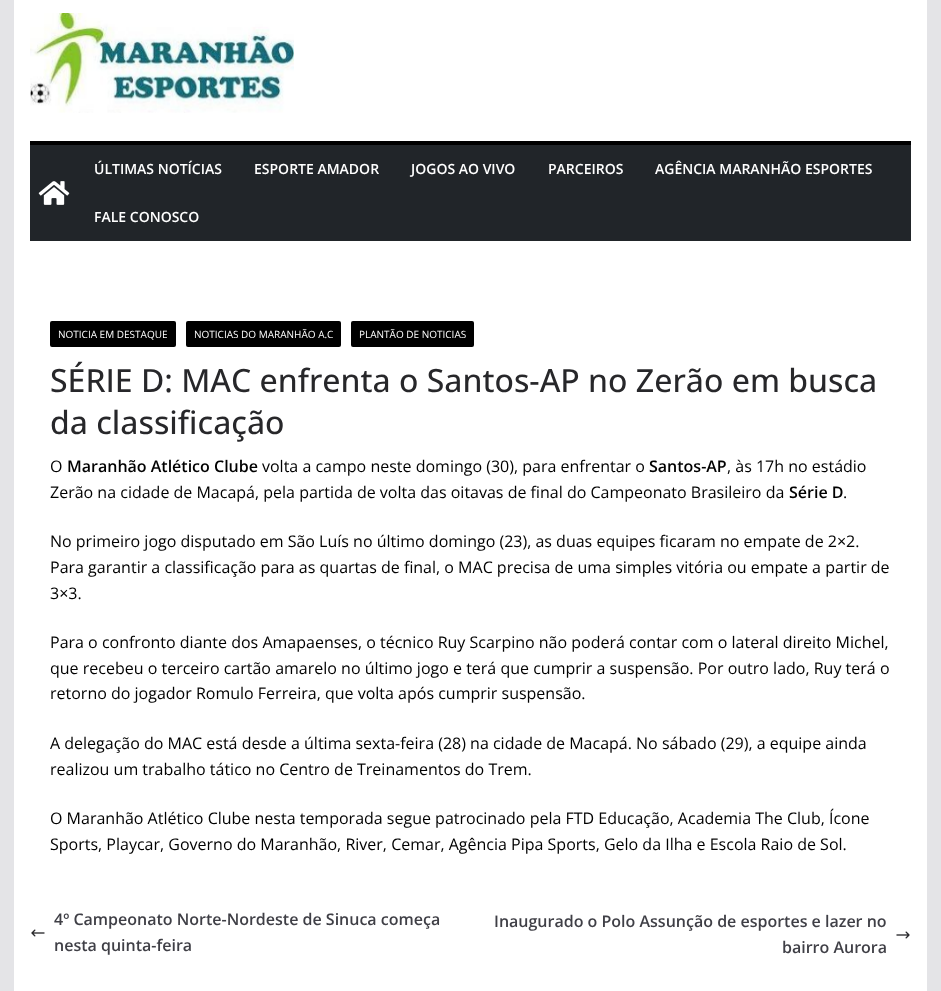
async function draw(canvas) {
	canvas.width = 941;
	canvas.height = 991;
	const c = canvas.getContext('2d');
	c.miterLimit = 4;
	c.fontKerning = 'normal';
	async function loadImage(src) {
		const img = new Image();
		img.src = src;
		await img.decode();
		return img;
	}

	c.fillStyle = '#e4e4e7';
	c.fillRect(0, 0, 941, 991);
	c.fillStyle = '#fff';
	c.fillRect(14, 0, 913, 991);
	c.drawImage(await loadImage('img1.png'), 30, 13, 264, 100);
	c.fillStyle = '#212529';
	c.fillRect(30, 145, 881, 96);
	c.fillStyle = '#000';
	c.fillRect(30, 141, 881, 4);
	c.drawImage(await loadImage('img2.png'), 38, 181, 32, 24);
	c.font = '600 14px Open Sans';
	c.fillStyle = '#fff';
	for (const [text, x, y] of [
		['ÚLTIMAS NOTÍCIAS', 94, 174],
		['ESPORTE AMADOR', 254, 174],
		['JOGOS AO VIVO', 411, 174],
		['PARCEIROS', 548, 174],
		['AGÊNCIA MARANHÃO ESPORTES', 655, 174],
		['FALE CONOSCO', 94, 222],
	]) {
		c.fillText(text, x, y);
	}
	c.fillStyle = '#000';
	c.beginPath();
	c.roundRect(50, 321, 126, 26, 2);
	c.fill();
	c.font = '10px Open Sans';
	c.fillStyle = '#fff';
	c.fillText('NOTICIA EM DESTAQUE', 58, 338);
	c.fillStyle = '#000';
	c.beginPath();
	c.roundRect(186, 321, 155, 26, 2);
	c.fill();
	c.fillStyle = '#fff';
	c.fillText('NOTICIAS DO MARANHÃO A.C', 194, 338);
	c.fillStyle = '#000';
	c.beginPath();
	c.roundRect(351, 321, 123, 26, 2);
	c.fill();
	c.fillStyle = '#fff';
	c.fillText('PLANTÃO DE NOTICIAS', 359, 338);
	c.font = '500 32px Open Sans';
	c.fillStyle = '#27272a';
	c.fillText('SÉRIE D: MAC enfrenta o Santos-AP no Zerão em busca', 50, 392);
	c.fillText('da classificação', 50, 434);
	c.font = '16px Open Sans';
	c.fillStyle = '#000';
	c.fillText('O', 50, 472);
	c.font = '600 16px Open Sans';
	c.fillText('Maranhão Atlético Clube', 67, 472);
	c.font = '16px Open Sans';
	c.fillText('volta a campo neste domingo (30), para enfrentar o', 262, 472);
	c.font = '600 16px Open Sans';
	c.fillText('Santos-AP', 649, 472);
	c.font = '16px Open Sans';
	c.fillText(', às 17h no estádio', 727, 472);
	c.fillText('Zerão na cidade de Macapá, pela partida de volta das oitavas de final do Campeonato Brasileiro da', 50, 498);
	c.font = '600 16px Open Sans';
	c.fillText('Série D', 789, 498);
	c.font = '16px Open Sans';
	for (const [text, x, y] of [
		['.', 843, 498],
		['No primeiro jogo disputado em São Luís no último domingo (23), as duas equipes ficaram no empate de 2×2.', 50, 547],
		['Para garantir a classificação para as quartas de final, o MAC precisa de uma simples vitória ou empate a partir de', 50, 573],
		['3×3.', 50, 599],
		['Para o confronto diante dos Amapaenses, o técnico Ruy Scarpino não poderá contar com o lateral direito Michel,', 50, 648],
		['que recebeu o terceiro cartão amarelo no último jogo e terá que cumprir a suspensão. Por outro lado, Ruy terá o', 50, 674],
		['retorno do jogador Romulo Ferreira, que volta após cumprir suspensão.', 50, 699],
		['A delegação do MAC está desde a última sexta-feira (28) na cidade de Macapá. No sábado (29), a equipe ainda', 50, 749],
		['realizou um trabalho tático no Centro de Treinamentos do Trem.', 50, 775],
		['O Maranhão Atlético Clube nesta temporada segue patrocinado pela FTD Educação, Academia The Club, Ícone', 50, 824],
		['Sports, Playcar, Governo do Maranhão, River, Cemar, Agência Pipa Sports, Gelo da Ilha e Escola Raio de Sol.', 50, 850],
	]) {
		c.fillText(text, x, y);
	}
	c.font = '600 16px Open Sans';
	c.fillStyle = '#3f3f46';
	c.fillText('4º Campeonato Norte-Nordeste de Sinuca começa', 54, 925);
	c.drawImage(await loadImage('img3.png'), 31, 929, 14, 8);
	c.fillText('nesta quinta-feira', 54, 951);
	c.fillText('Inaugurado o Polo Assunção de esportes e lazer no', 494, 927);
	c.drawImage(await loadImage('img4.png'), 896, 931, 14, 8);
	c.fillText('bairro Aurora', 782, 953);
}

draw(document.querySelector('canvas'));
